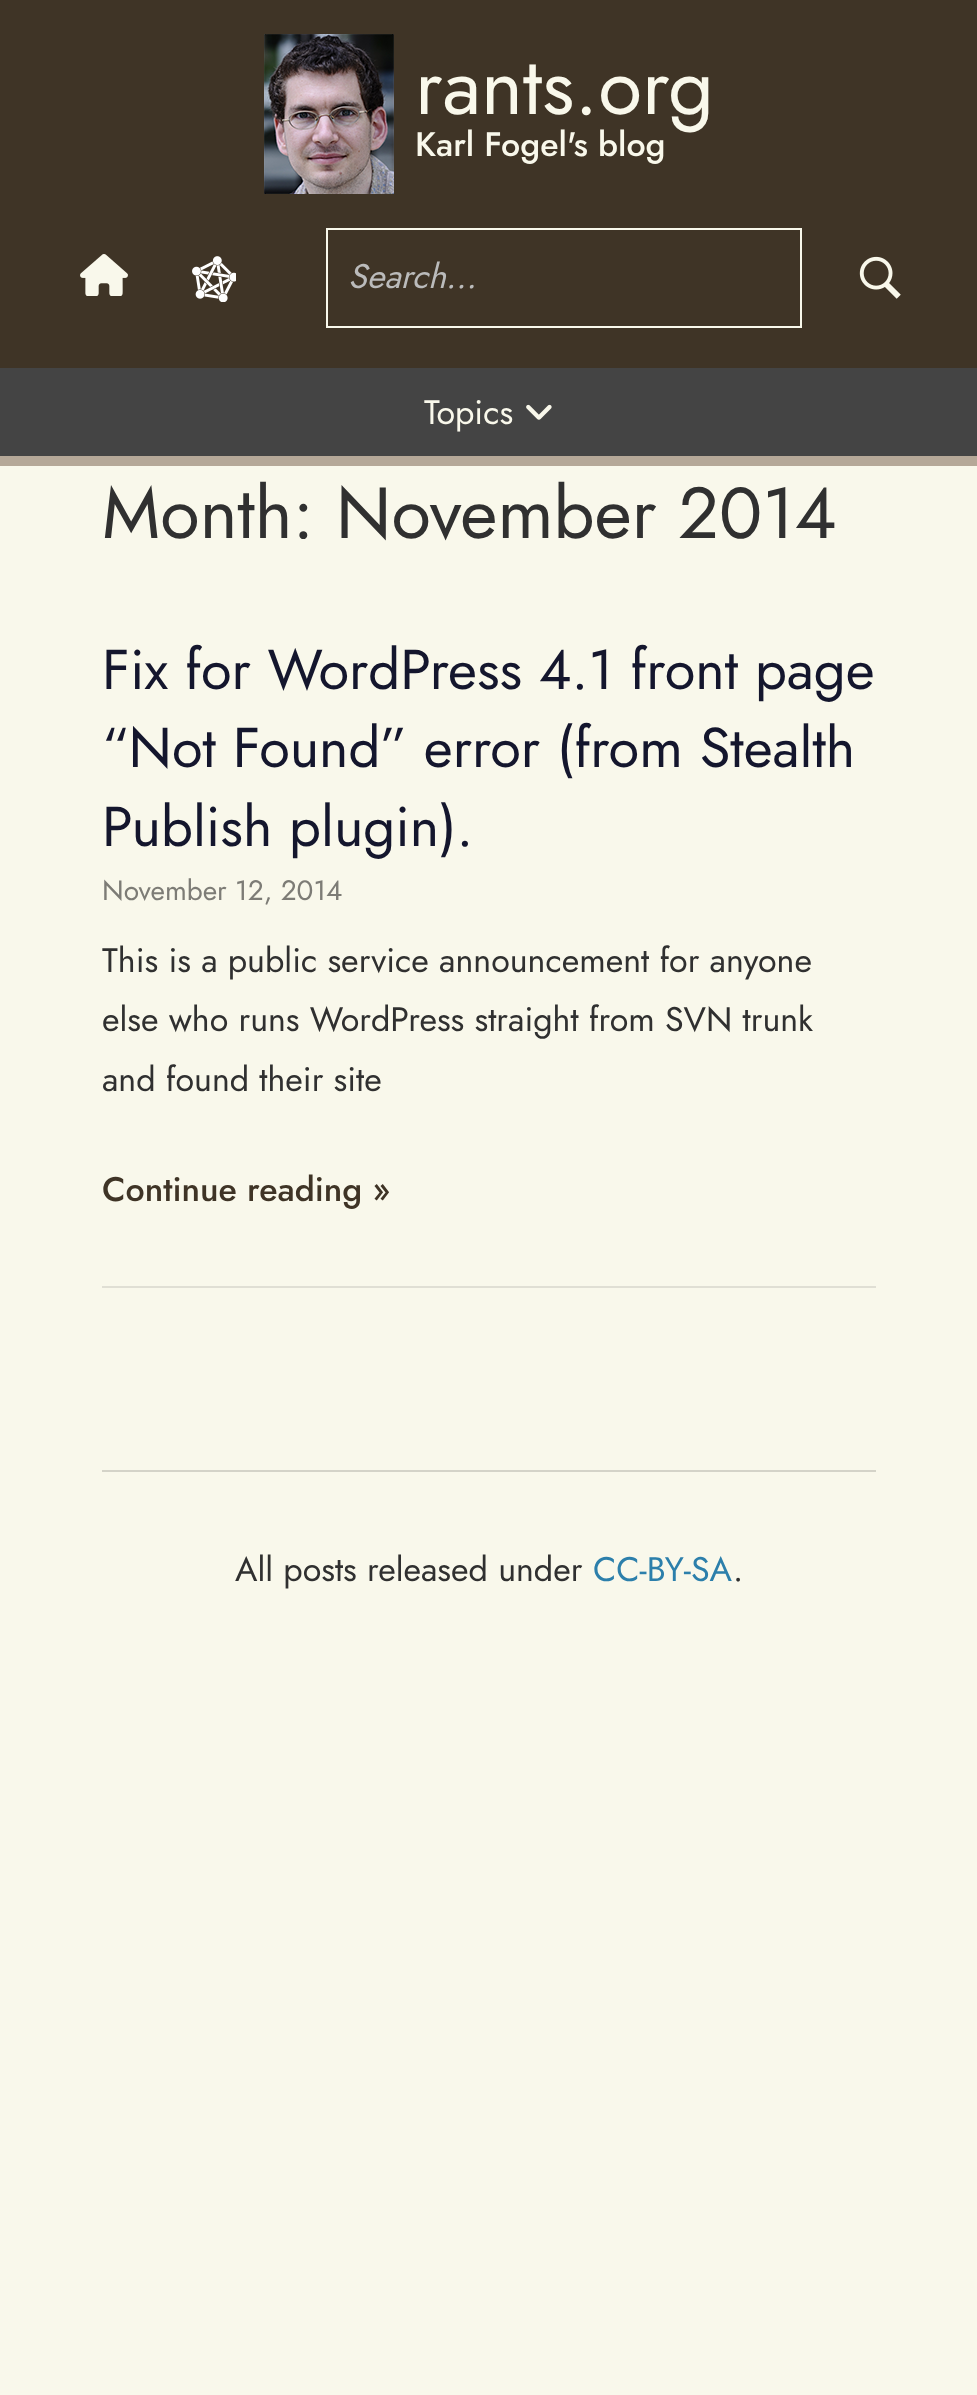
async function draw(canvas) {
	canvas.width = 977;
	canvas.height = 2395;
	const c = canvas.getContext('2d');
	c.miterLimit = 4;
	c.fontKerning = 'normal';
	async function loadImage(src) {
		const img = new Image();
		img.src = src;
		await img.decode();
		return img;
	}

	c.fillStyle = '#f9f8eb';
	c.fillRect(0, 0, 977, 2395);
	c.fillStyle = '#3f3426';
	c.fillRect(0, 0, 977, 368);
	c.drawImage(await loadImage('img1.png'), 264, 34, 130, 160);
	c.font = '80px Jost';
	c.fillStyle = '#f9f8eb';
	c.fillText('rants.org', 415, 114);
	c.font = '500 34px Jost';
	c.fillText('Karl Fogel\'s blog', 415, 156);
	c.drawImage(await loadImage('img2.png'), 80, 254, 48, 42);
	c.drawImage(await loadImage('img3.png'), 192, 256, 44, 46);
	c.strokeStyle = '#f9f8eb';
	c.lineWidth = 2;
	c.strokeRect(327, 229, 474, 98);
	c.font = 'italic 34px Jost';
	c.fillStyle = '#bbb';
	c.fillText('Search...', 348, 288);
	c.drawImage(await loadImage('img4.png'), 859, 256, 42, 43);
	c.fillStyle = '#444';
	c.fillRect(0, 368, 977, 88);
	c.font = '34px Jost';
	c.fillStyle = '#f9f8eb';
	c.fillText('Topics', 424, 424);
	c.drawImage(await loadImage('img5.png'), 526, 404, 26, 16);
	c.fillStyle = '#b5a898';
	c.fillRect(0, 456, 977, 10);
	c.font = '72px Jost';
	c.fillStyle = '#303030';
	c.fillText('Month: November 2014', 102, 538);
	c.font = '56px Jost';
	c.fillStyle = '#14162d';
	for (const [text, x, y] of [
		['Fix for WordPress 4.1 front page', 102, 689],
		['“Not Found” error (from Stealth', 102, 767],
		['Publish plugin).', 102, 846],
	]) {
		c.fillText(text, x, y);
	}
	c.font = '28px Jost';
	c.fillStyle = '#7d7c76';
	c.fillText('November 12, 2014', 102, 900);
	c.font = '34px Jost';
	c.fillStyle = '#303030';
	for (const [text, x, y] of [
		['This is a public service announcement for anyone', 102, 972],
		['else who runs WordPress straight from SVN trunk', 102, 1031],
		['and found their site', 102, 1091],
	]) {
		c.fillText(text, x, y);
	}
	c.font = '500 34px Jost';
	c.fillStyle = '#3f3426';
	c.fillText('Continue reading »', 102, 1201);
	c.fillStyle = '#e0dfd4';
	c.fillRect(102, 1286, 774, 2);
	c.fillStyle = '#d4d3c8';
	c.fillRect(102, 1470, 774, 2);
	c.font = '34px Jost';
	c.fillStyle = '#303030';
	c.fillText('All posts released under', 235, 1581);
	c.fillStyle = '#2c7fab';
	c.fillText('CC-BY-SA', 593, 1581);
	c.fillStyle = '#303030';
	c.fillText('.', 733, 1581);
}

draw(document.querySelector('canvas'));
